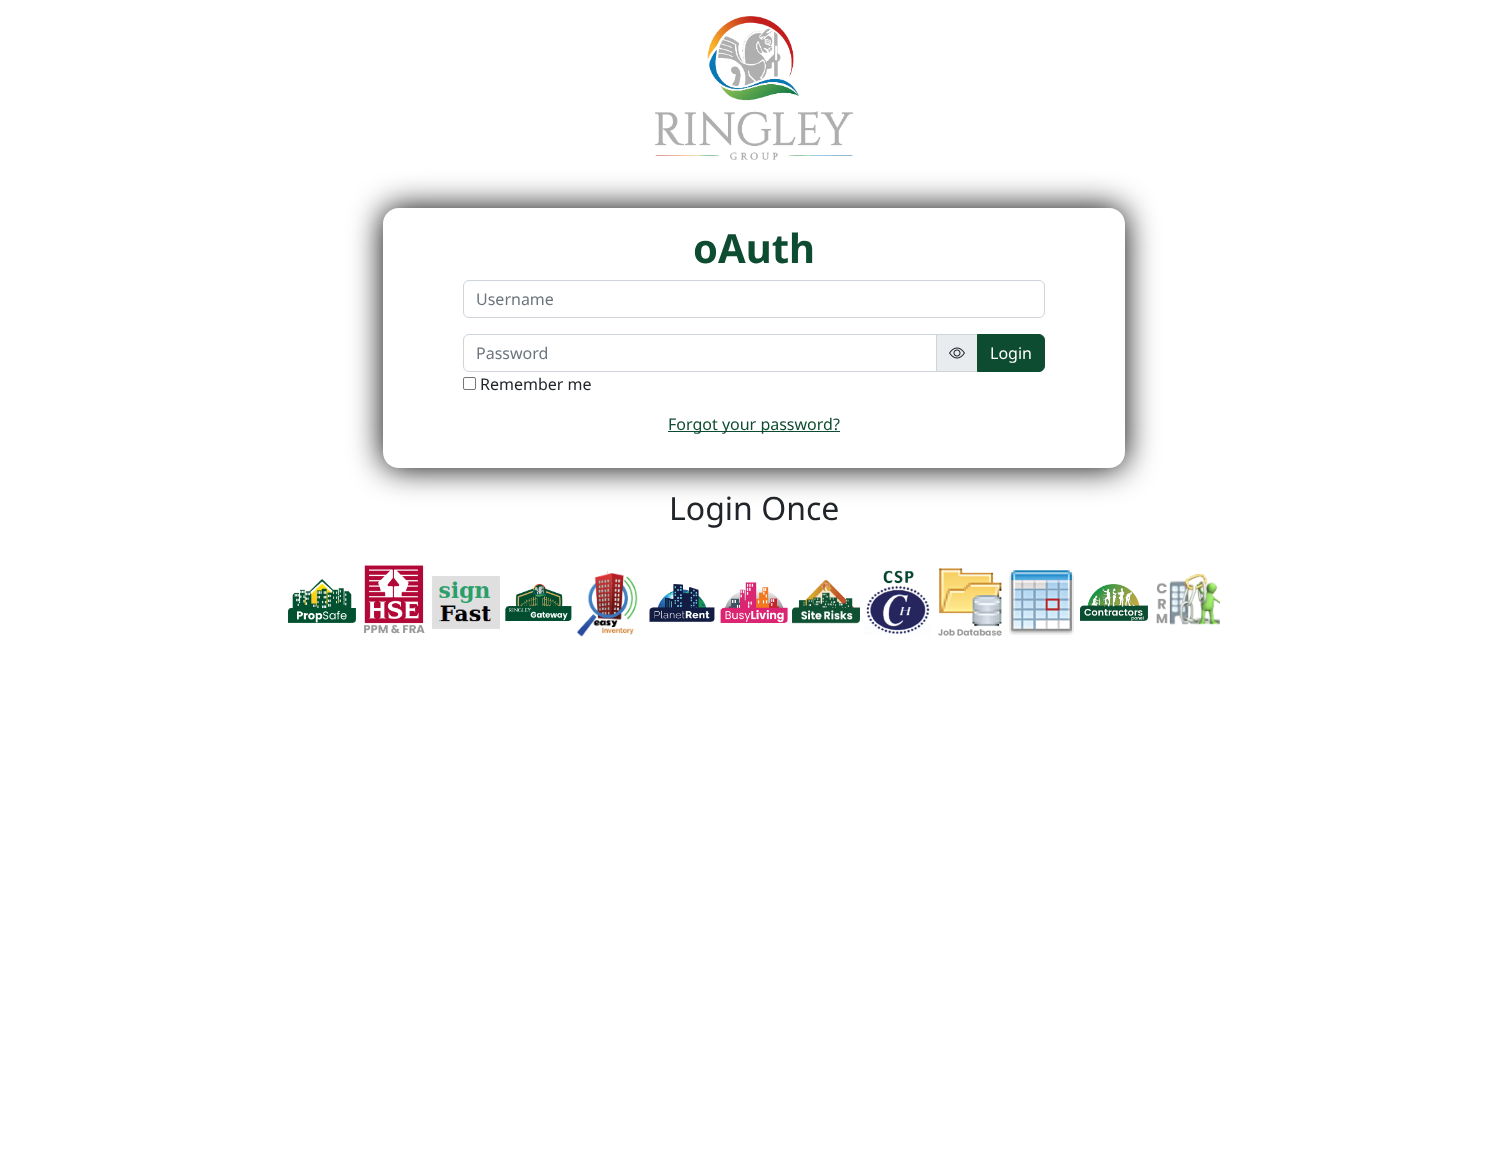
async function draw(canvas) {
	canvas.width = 1508;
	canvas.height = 1156;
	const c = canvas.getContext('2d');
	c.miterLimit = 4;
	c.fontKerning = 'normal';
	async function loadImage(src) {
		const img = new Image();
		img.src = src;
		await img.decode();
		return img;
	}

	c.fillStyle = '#fff';
	c.fillRect(0, 0, 1508, 1156);
	c.drawImage(await loadImage('img1.png'), 655, 16, 198, 144);
	c.save();
	c.beginPath();
	c.moveTo(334, 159);
	c.lineTo(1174, 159);
	c.lineTo(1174, 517);
	c.lineTo(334, 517);
	c.closePath();
	c.moveTo(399, 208);
	c.lineTo(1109, 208);
	c.bezierCurveTo(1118, 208, 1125, 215, 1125, 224);
	c.lineTo(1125, 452);
	c.bezierCurveTo(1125, 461, 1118, 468, 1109, 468);
	c.lineTo(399, 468);
	c.bezierCurveTo(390, 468, 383, 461, 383, 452);
	c.lineTo(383, 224);
	c.bezierCurveTo(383, 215, 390, 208, 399, 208);
	c.closePath();
	c.clip('evenodd');
	c.fillStyle = '#000';
	c.filter = 'blur(16px)';
	c.beginPath();
	c.roundRect(383, 208, 742, 260, 16);
	c.fill();
	c.filter = 'none';
	c.restore();
	c.font = 'bold 40px Noto Sans';
	c.fillStyle = '#0e4c31';
	c.fillText('oAuth', 693, 263);
	c.beginPath();
	c.roundRect(463.5, 280.5, 581, 37, 5.5);
	c.strokeStyle = '#ced4da';
	c.stroke();
	c.font = '16px Noto Sans';
	c.fillStyle = '#6c757d';
	c.fillText('Username', 476, 305);
	c.fillStyle = '#e9ecef';
	c.beginPath();
	c.rect(936.5, 334.5, 41, 37);
	c.fill();
	c.stroke();
	c.beginPath();
	c.roundRect(463.5, 334.5, 473, 37, [5.5, 0, 0, 5.5]);
	c.stroke();
	c.fillStyle = '#6c757d';
	c.fillText('Password', 476, 359);
	c.drawImage(await loadImage('img2.png'), 949, 347, 16, 12);
	c.fillStyle = '#0e4c31';
	c.beginPath();
	c.roundRect(977.5, 334.5, 67, 37, [0, 5.5, 5.5, 0]);
	c.fill();
	c.strokeStyle = '#0e4c31';
	c.stroke();
	c.fillStyle = '#fff';
	c.fillText('Login', 990, 359);
	c.beginPath();
	c.roundRect(463.5, 377.5, 12, 12, 1.5);
	c.strokeStyle = '#767676';
	c.stroke();
	c.fillStyle = '#212529';
	c.fillText('Remember me', 480, 390);
	c.fillStyle = '#0e4c31';
	c.fillRect(668, 431, 172, 1);
	c.fillText('Forgot your password?', 668, 430);
	c.font = '32px Noto Sans';
	c.fillStyle = '#212529';
	c.fillText('Login Once', 669, 520);
	c.drawImage(await loadImage('img3.png'), 288, 579, 68, 44);
	c.drawImage(await loadImage('img4.png'), 364, 565, 61, 69);
	c.drawImage(await loadImage('img5.png'), 432, 576, 68, 53);
	c.drawImage(await loadImage('img6.png'), 505, 584, 67, 37);
	c.drawImage(await loadImage('img7.png'), 576, 571, 62, 66);
	c.drawImage(await loadImage('img8.png'), 649, 584, 66, 38);
	c.drawImage(await loadImage('img9.png'), 720, 582, 68, 41);
	c.drawImage(await loadImage('img10.png'), 792, 579, 68, 45);
	c.drawImage(await loadImage('img11.png'), 864, 570, 67, 65);
	c.drawImage(await loadImage('img12.png'), 938, 568, 64, 68);
	c.drawImage(await loadImage('img13.png'), 1009, 570, 65, 65);
	c.drawImage(await loadImage('img14.png'), 1080, 584, 68, 37);
	c.drawImage(await loadImage('img15.png'), 1156, 574, 64, 51);
}

draw(document.querySelector('canvas'));
